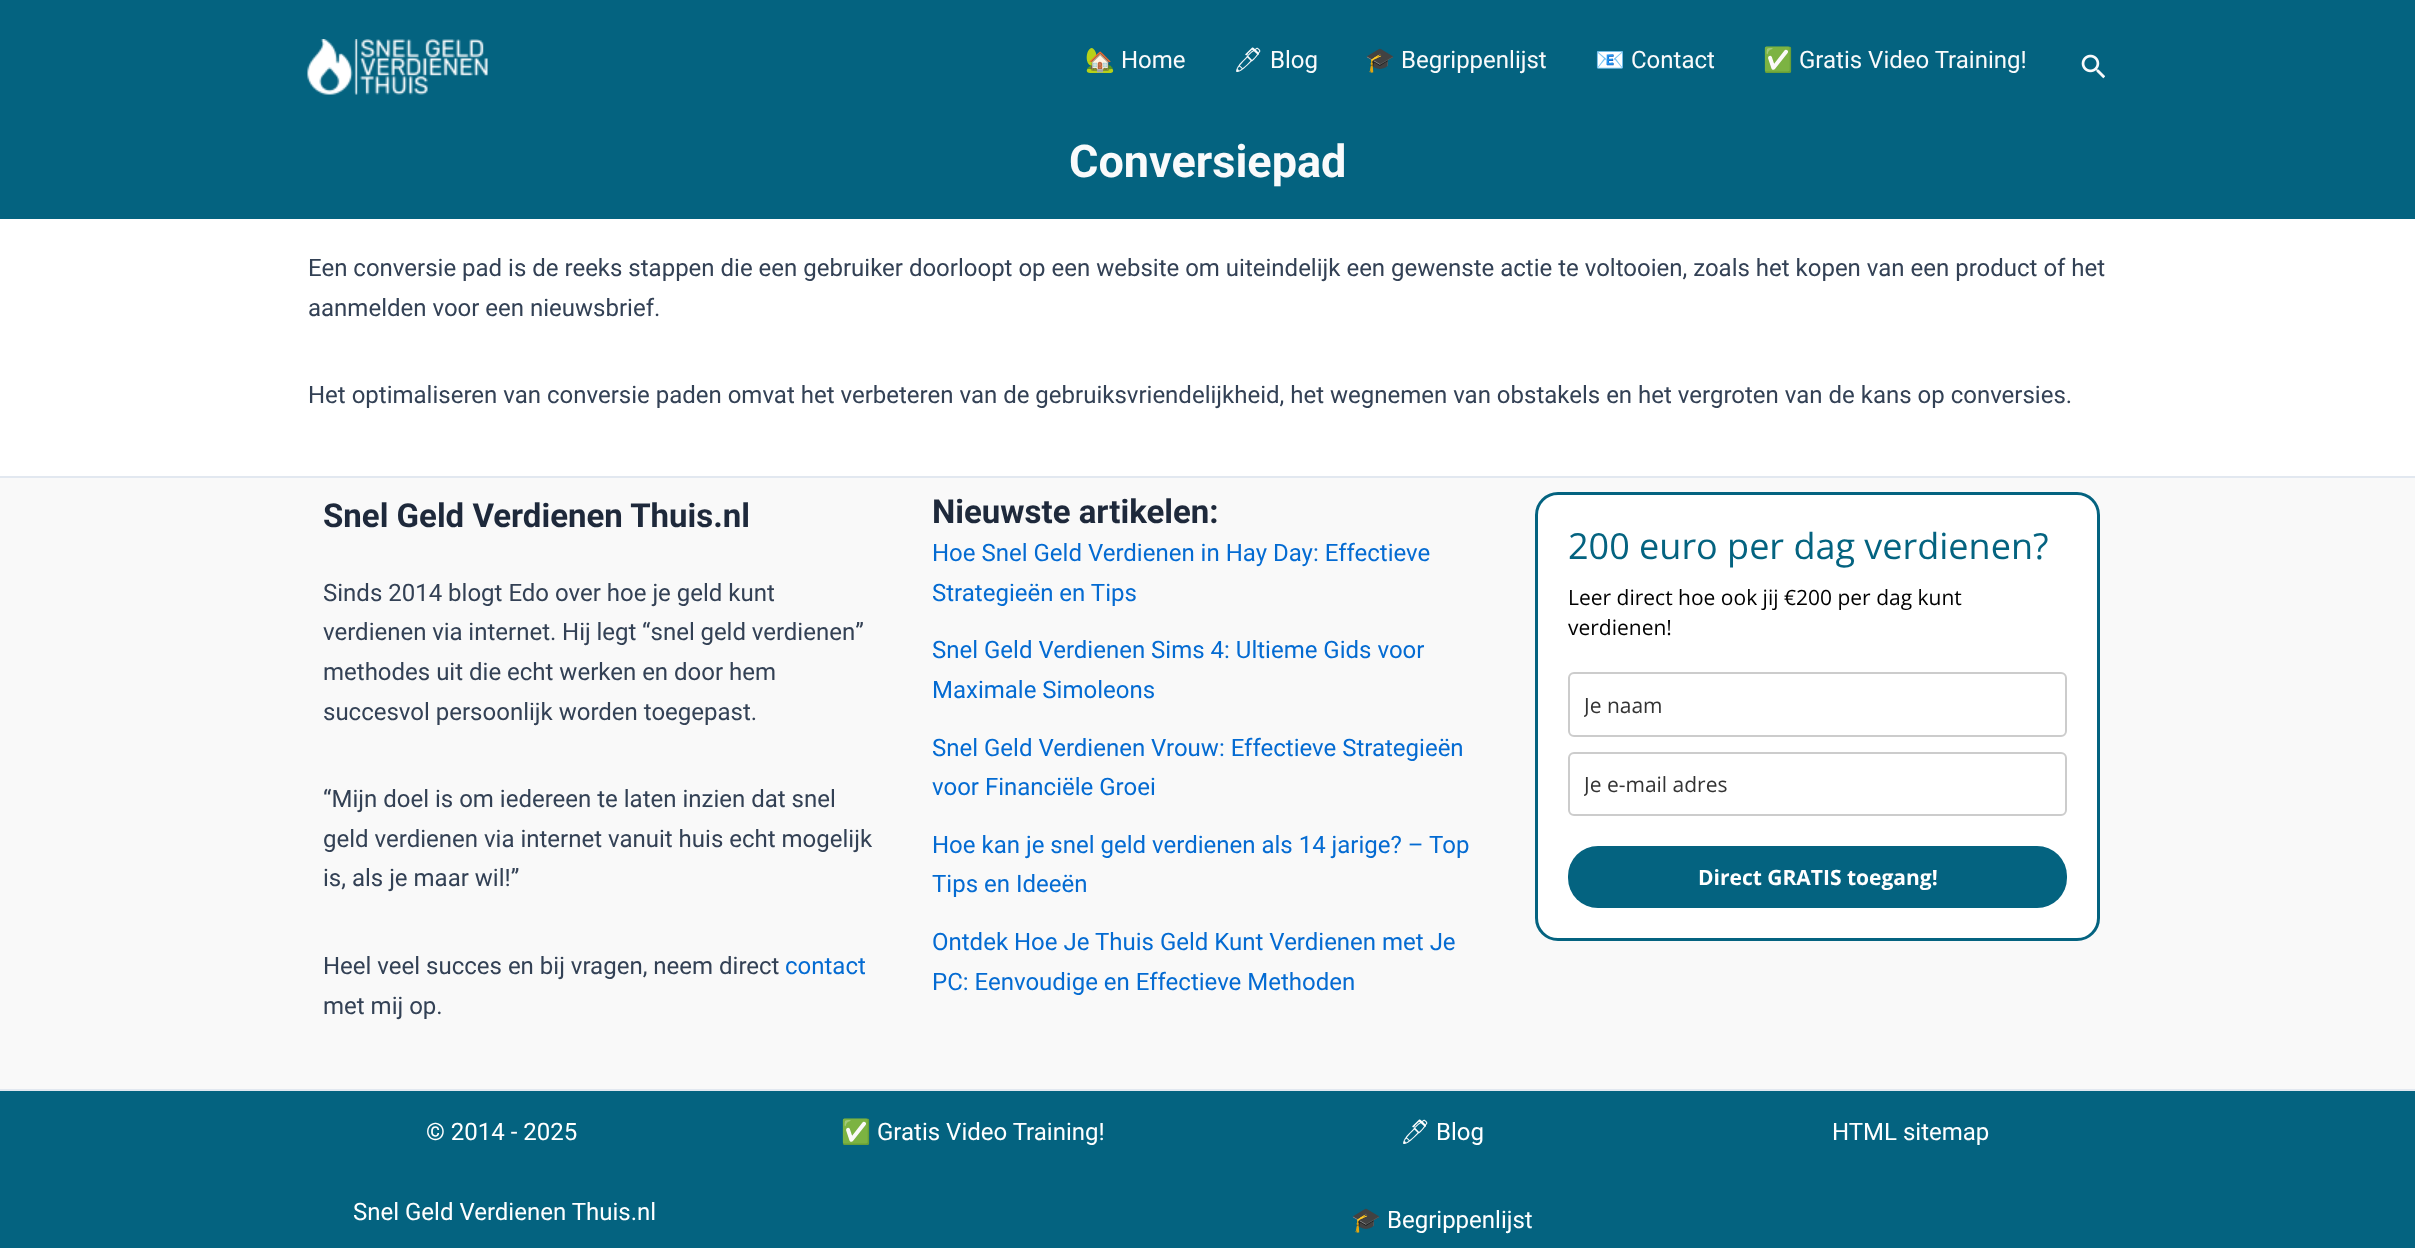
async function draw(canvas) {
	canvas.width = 2415;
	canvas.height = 1248;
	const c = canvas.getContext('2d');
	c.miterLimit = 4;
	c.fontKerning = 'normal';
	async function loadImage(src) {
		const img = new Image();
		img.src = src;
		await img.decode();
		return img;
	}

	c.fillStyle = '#fff';
	c.fillRect(0, 0, 2415, 1248);
	c.fillStyle = '#046380';
	c.fillRect(0, 0, 2415, 219);
	c.drawImage(await loadImage('img1.png'), 307, 39, 181, 56);
	c.font = '24px Noto Color Emoji';
	c.fillStyle = '#f9fafb';
	c.fillText('🏡', 1085, 68);
	c.font = '24px Roboto';
	c.fillText('Home', 1121, 68);
	c.font = '24px Noto Emoji';
	c.fillText('🖊', 1233, 68);
	c.font = '24px Roboto';
	c.fillText('Blog', 1270, 68);
	c.font = '24px Noto Color Emoji';
	c.fillText('🎓', 1365, 68);
	c.font = '24px Roboto';
	c.fillText('Begrippenlijst', 1401, 68);
	c.font = '24px Noto Color Emoji';
	c.fillText('📧', 1595, 68);
	c.font = '24px Roboto';
	c.fillText('Contact', 1631, 68);
	c.font = '24px Noto Color Emoji';
	c.fillText('✅', 1763, 68);
	c.font = '24px Roboto';
	c.fillText('Gratis Video Training!', 1799, 68);
	c.drawImage(await loadImage('img2.png'), 2081, 54, 24, 25);
	c.font = 'bold 45px Roboto';
	c.fillText('Conversiepad', 1069, 177);
	c.font = '24px Roboto';
	c.fillStyle = '#334155';
	for (const [text, x, y] of [
		['Een conversie pad is de reeks stappen die een gebruiker doorloopt op een website om uiteindelijk een gewenste actie te voltooien, zoals het kopen van een product of het', 308, 276],
		['aanmelden voor een nieuwsbrief.', 308, 316],
		['Het optimaliseren van conversie paden omvat het verbeteren van de gebruiksvriendelijkheid, het wegnemen van obstakels en het vergroten van de kans op conversies.', 308, 403],
	]) {
		c.fillText(text, x, y);
	}
	c.fillStyle = '#f9f9f9';
	c.fillRect(0, 478, 2415, 611);
	c.fillStyle = '#e2e8f0';
	c.fillRect(0, 476, 2415, 2);
	c.font = 'bold 33px Roboto';
	c.fillStyle = '#1e293b';
	c.fillText('Snel Geld Verdienen Thuis.nl', 323, 527);
	c.font = '24px Roboto';
	c.fillStyle = '#334155';
	c.fillText('Sinds 2014 blogt Edo over hoe je geld kunt', 323, 601);
	c.wordSpacing = '-0.25px';
	c.fillText('verdienen via internet. Hij legt “snel geld verdienen”', 323, 640);
	c.wordSpacing = '0px';
	for (const [text, x, y] of [
		['methodes uit die echt werken en door hem', 323, 680],
		['succesvol persoonlijk worden toegepast.', 323, 720],
		['“Mijn doel is om iedereen te laten inzien dat snel', 323, 807],
		['geld verdienen via internet vanuit huis echt mogelijk', 323, 847],
		['is, als je maar wil!”', 323, 886],
		['Heel veel succes en bij vragen, neem direct', 323, 974],
	]) {
		c.fillText(text, x, y);
	}
	c.fillStyle = '#046bd2';
	c.fillText('contact', 785, 974);
	c.fillStyle = '#334155';
	c.fillText('met mij op.', 323, 1014);
	c.font = 'bold 33px Roboto';
	c.fillStyle = '#1e293b';
	c.fillText('Nieuwste artikelen:', 932, 523);
	c.font = '24px Roboto';
	c.fillStyle = '#046bd2';
	for (const [text, x, y] of [
		['Hoe Snel Geld Verdienen in Hay Day: Effectieve', 932, 561],
		['Strategieën en Tips', 932, 601],
		['Snel Geld Verdienen Sims 4: Ultieme Gids voor', 932, 658],
		['Maximale Simoleons', 932, 698],
		['Snel Geld Verdienen Vrouw: Effectieve Strategieën', 932, 756],
		['voor Financiële Groei', 932, 795],
		['Hoe kan je snel geld verdienen als 14 jarige? – Top', 932, 853],
		['Tips en Ideeën', 932, 892],
		['Ontdek Hoe Je Thuis Geld Kunt Verdienen met Je', 932, 950],
		['PC: Eenvoudige en Effectieve Methoden', 932, 990],
	]) {
		c.fillText(text, x, y);
	}
	c.fillStyle = '#fff';
	c.beginPath();
	c.roundRect(1536.5, 493.5, 562, 446, 21.5);
	c.fill();
	c.strokeStyle = '#046380';
	c.lineWidth = 3;
	c.stroke();
	c.font = '36px Open Sans';
	c.fillStyle = '#046380';
	c.fillText('200 euro per dag verdienen?', 1568, 559);
	c.font = '21px Open Sans';
	c.fillStyle = '#000';
	c.fillText('Leer direct hoe ook jij €200 per dag kunt', 1568, 605);
	c.fillText('verdienen!', 1568, 635);
	c.beginPath();
	c.roundRect(1569, 673, 497, 63, 5);
	c.strokeStyle = '#ccc';
	c.lineWidth = 2;
	c.stroke();
	c.save();
	c.beginPath();
	c.rect(1584, 690, 467, 29);
	c.clip();
	c.fillStyle = '#333';
	c.fillText('Je naam', 1584, 713);
	c.restore();
	c.beginPath();
	c.roundRect(1569, 753, 497, 62, 5);
	c.stroke();
	c.save();
	c.beginPath();
	c.rect(1584, 770, 467, 28);
	c.clip();
	c.fillStyle = '#333';
	c.fillText('Je e-mail adres', 1584, 792);
	c.restore();
	c.fillStyle = '#046380';
	c.beginPath();
	c.roundRect(1568, 846, 499, 62, 30);
	c.fill();
	c.font = 'bold 21px Open Sans';
	c.fillStyle = '#fff';
	c.fillText('Direct GRATIS toegang!', 1698, 885);
	c.fillStyle = '#046380';
	c.fillRect(0, 1091, 2415, 157);
	c.fillStyle = '#e2e8f0';
	c.fillRect(0, 1089, 2415, 2);
	c.font = '24px Roboto';
	c.fillStyle = '#fff';
	c.fillText('© 2014 - 2025', 426, 1140);
	c.fillText('Snel Geld Verdienen Thuis.nl', 353, 1220);
	c.font = '24px Noto Color Emoji';
	c.fillText('✅', 841, 1140);
	c.font = '24px Roboto';
	c.fillText('Gratis Video Training!', 877, 1140);
	c.font = '24px Noto Emoji';
	c.fillText('🖊', 1400, 1140);
	c.font = '24px Roboto';
	c.fillText('Blog', 1436, 1140);
	c.font = '24px Noto Color Emoji';
	c.fillText('🎓', 1351, 1228);
	c.font = '24px Roboto';
	c.fillText('Begrippenlijst', 1387, 1228);
	c.fillText('HTML sitemap', 1832, 1140);
}

draw(document.querySelector('canvas'));
